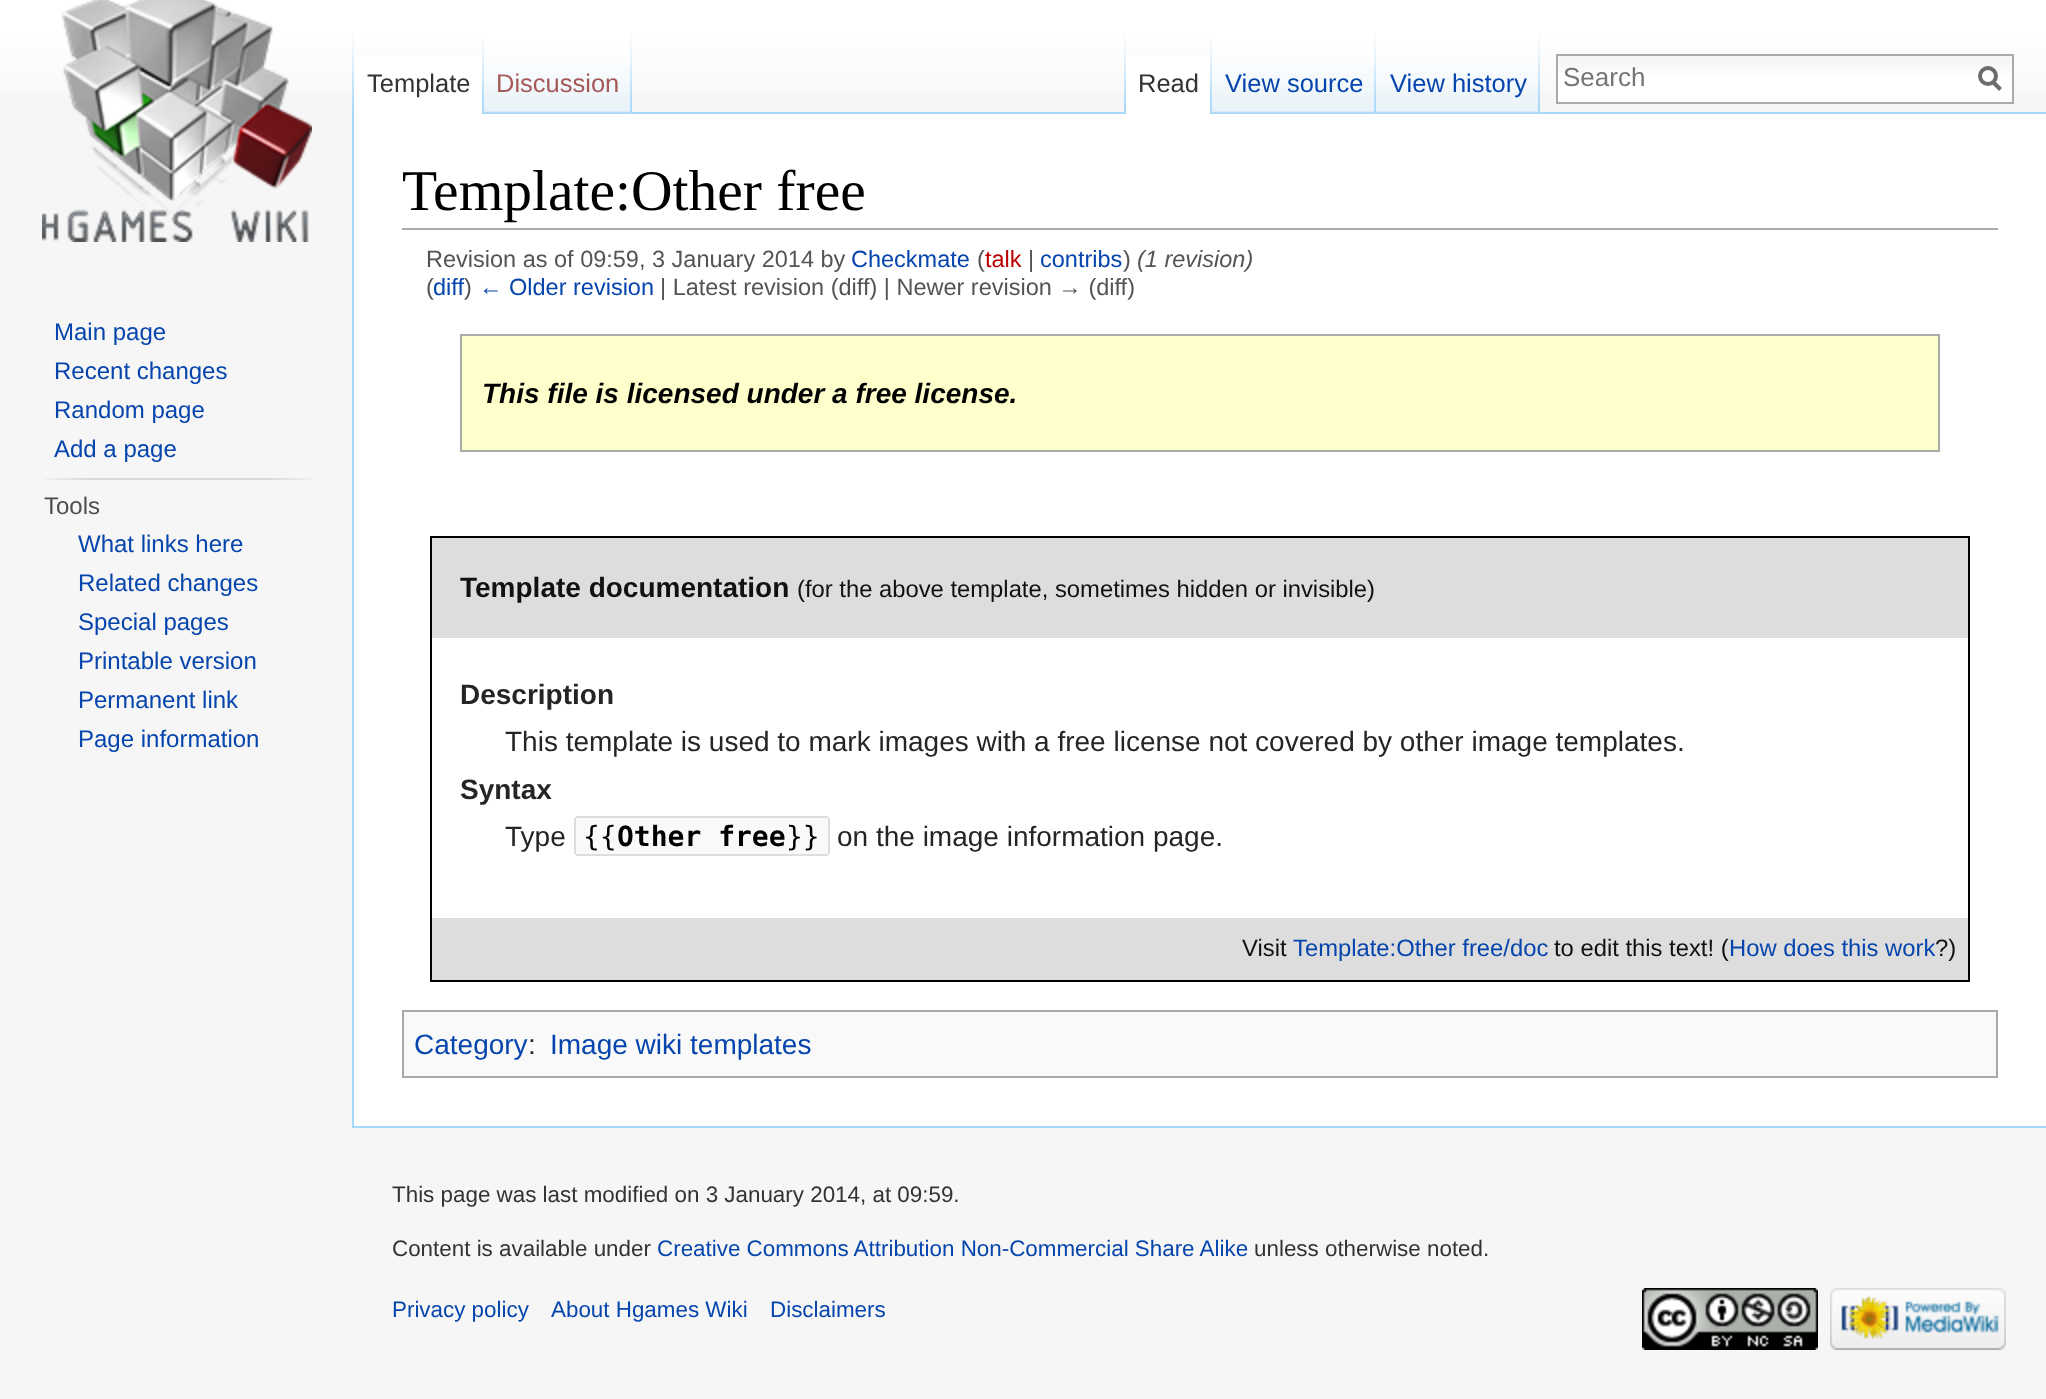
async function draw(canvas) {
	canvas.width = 2046;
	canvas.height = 1399;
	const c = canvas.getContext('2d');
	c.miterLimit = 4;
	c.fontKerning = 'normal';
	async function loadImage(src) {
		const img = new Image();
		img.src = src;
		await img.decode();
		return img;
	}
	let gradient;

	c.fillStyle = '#f6f6f6';
	c.fillRect(0, 0, 2046, 1399);
	gradient = c.createLinearGradient(1023, -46, 1023, 114);
	gradient.addColorStop(0.5, '#fff');
	gradient.addColorStop(1, '#f6f6f6');
	c.fillStyle = gradient;
	c.fillRect(0, 0, 2046, 92);
	c.drawImage(await loadImage('img1.png'), 352, 34, 2, 78);
	c.fillStyle = '#fff';
	c.fillRect(354, 56, 130, 58);
	c.drawImage(await loadImage('img2.png'), 482, 35, 2, 79);
	c.font = '25.5px Liberation Sans';
	c.fillStyle = '#333';
	c.fillText('Template', 367, 92);
	c.drawImage(await loadImage('img3.png'), 484, 34, 148, 80);
	c.drawImage(await loadImage('img4.png'), 630, 35, 2, 78);
	c.fillStyle = '#a55858';
	c.fillText('Discussion', 496, 92);
	c.drawImage(await loadImage('img1.png'), 1124, 34, 2, 78);
	c.fillStyle = '#a7d7f9';
	c.fillRect(632, 112, 1414, 2);
	c.fillStyle = '#fff';
	c.fillRect(1126, 56, 86, 58);
	c.drawImage(await loadImage('img2.png'), 1210, 35, 2, 79);
	c.fillStyle = '#333';
	c.fillText('Read', 1138, 92);
	c.drawImage(await loadImage('img5.png'), 1212, 34, 164, 80);
	c.drawImage(await loadImage('img4.png'), 1374, 35, 2, 78);
	c.fillStyle = '#0645ad';
	c.fillText('View source', 1225, 92);
	c.drawImage(await loadImage('img5.png'), 1376, 34, 164, 80);
	c.drawImage(await loadImage('img4.png'), 1538, 35, 2, 78);
	c.fillText('View history', 1390, 92);
	c.fillStyle = '#fff';
	c.fillRect(1558, 73, 454, 29);
	c.drawImage(await loadImage('img6.png'), 1558, 56, 454, 17);
	c.strokeStyle = '#aaa';
	c.lineWidth = 2;
	c.strokeRect(1557, 55, 456, 48);
	c.font = '26px Liberation Sans';
	c.fillStyle = '#757575';
	c.fillText('Search', 1563, 86);
	c.beginPath();
	c.moveTo(2000.5, 89.5);
	c.lineTo(1992.5, 81.5);
	c.strokeStyle = '#6c6c6c';
	c.lineWidth = 4;
	c.stroke();
	c.beginPath();
	c.arc(1988, 76, 8, 0, 2 * Math.PI);
	c.stroke();
	c.drawImage(await loadImage('img7.png'), 42, 0, 270, 242);
	c.font = '24px Liberation Sans';
	c.fillStyle = '#0645ad';
	for (const [text, x, y] of [
		['Main page', 54, 340],
		['Recent changes', 54, 379],
		['Random page', 54, 418],
		['Add a page', 54, 457],
	]) {
		c.fillText(text, x, y);
	}
	c.drawImage(await loadImage('img8.png'), 43, 478, 272, 2);
	c.fillStyle = '#4d4d4d';
	c.fillText('Tools', 44, 514);
	c.fillStyle = '#0645ad';
	for (const [text, x, y] of [
		['What links here', 78, 552],
		['Related changes', 78, 591],
		['Special pages', 78, 630],
		['Printable version', 78, 669],
		['Permanent link', 78, 708],
		['Page information', 78, 747],
	]) {
		c.fillText(text, x, y);
	}
	for (const [x, y, w, h, color] of [
		[354, 114, 1692, 1012, '#fff'],
		[352, 1126, 1694, 2, '#a7d7f9'],
		[352, 112, 2, 1016, '#a7d7f9'],
		[402, 228, 1596, 2, '#aaa'],
	]) {
		c.fillStyle = color;
		c.fillRect(x, y, w, h);
	}
	c.font = '57.5px Liberation Serif';
	c.fillStyle = '#000';
	c.fillText('Template:Other free', 402, 210);
	c.font = '23.5px Liberation Sans';
	c.fillStyle = '#545454';
	c.fillText('Revision as of 09:59, 3 January 2014 by', 426, 267);
	c.fillStyle = '#0645ad';
	c.fillText('Checkmate', 851, 267);
	c.fillStyle = '#545454';
	c.fillText('(', 977, 267);
	c.fillStyle = '#ba0000';
	c.fillText('talk', 985, 267);
	c.fillStyle = '#545454';
	c.fillText('|', 1028, 267);
	c.fillStyle = '#0645ad';
	c.fillText('contribs', 1040, 267);
	c.fillStyle = '#545454';
	c.fillText(')', 1123, 267);
	c.font = 'italic 23.5px Liberation Sans';
	c.fillText('(1 revision)', 1137, 267);
	c.font = '23.5px Liberation Sans';
	c.fillText('(', 426, 295);
	c.fillStyle = '#0645ad';
	c.fillText('diff', 433, 295);
	c.fillStyle = '#545454';
	c.fillText(')', 464, 295);
	c.fillStyle = '#0645ad';
	c.fillText('← Older revision', 479, 295);
	c.fillStyle = '#545454';
	c.fillText('| Latest revision (diff) | Newer revision → (diff)', 660, 295);
	c.fillStyle = '#ffc';
	c.beginPath();
	c.rect(461, 335, 1478, 116);
	c.fill();
	c.strokeStyle = '#a8aca8';
	c.lineWidth = 2;
	c.stroke();
	c.font = 'italic bold 28px Liberation Sans';
	c.fillStyle = '#000';
	c.fillText('This file is licensed under a free license.', 482, 403);
	c.strokeStyle = '#000';
	c.strokeRect(431, 537, 1538, 444);
	c.fillStyle = '#ddd';
	c.fillRect(432, 538, 1536, 100);
	c.font = 'bold 28px Liberation Sans';
	c.fillStyle = '#111';
	c.fillText('Template documentation', 460, 597);
	c.font = '23.8px Liberation Sans';
	c.fillText('(for the above template, sometimes hidden or invisible)', 797, 597);
	c.font = 'bold 28px Liberation Sans';
	c.fillStyle = '#252525';
	c.fillText('Description', 460, 704);
	c.font = '28px Liberation Sans';
	c.fillText('This template is used to mark images with a free license not covered by other image templates.', 505, 751);
	c.font = 'bold 28px Liberation Sans';
	c.fillText('Syntax', 460, 799);
	c.font = '28px Liberation Sans';
	c.fillText('Type', 505, 846);
	c.fillStyle = '#f9f9f9';
	c.beginPath();
	c.roundRect(574, 816, 44, 40, [4, 0, 0, 4]);
	c.fill();
	c.font = '28px DejaVu Sans Mono';
	c.fillStyle = '#000';
	c.fillText('{{', 583, 846);
	for (const [x, y, w, h, color] of [
		[576, 854, 210, 2, '#ddd'],
		[574, 818, 2, 36, '#ddd'],
		[618, 818, 168, 36, '#f9f9f9'],
	]) {
		c.fillStyle = color;
		c.fillRect(x, y, w, h);
	}
	c.font = 'bold 28px DejaVu Sans Mono';
	c.fillStyle = '#000';
	c.fillText('Other free', 617, 846);
	c.fillStyle = '#ddd';
	c.fillRect(576, 816, 210, 2);
	c.fillStyle = '#f9f9f9';
	c.beginPath();
	c.roundRect(786, 816, 44, 40, [0, 4, 4, 0]);
	c.fill();
	c.fillStyle = '#ddd';
	c.fillRect(786, 816, 42, 2);
	c.font = '28px DejaVu Sans Mono';
	c.fillStyle = '#000';
	c.fillText('}}', 786, 846);
	c.fillStyle = '#ddd';
	c.fillRect(828, 818, 2, 36);
	c.fillRect(786, 854, 42, 2);
	c.font = '28px Liberation Sans';
	c.fillStyle = '#252525';
	c.fillText('on the image information page.', 837, 846);
	c.fillStyle = '#ddd';
	c.fillRect(432, 918, 1536, 62);
	c.font = '23.8px Liberation Sans';
	c.fillStyle = '#111';
	c.fillText('Visit', 1242, 956);
	c.fillStyle = '#0645ad';
	c.fillText('Template:Other free/doc', 1293, 956);
	c.fillStyle = '#111';
	c.fillText('to edit this text! (', 1554, 956);
	c.fillStyle = '#0645ad';
	c.fillText('How does this work', 1729, 956);
	c.fillStyle = '#111';
	c.fillText('?)', 1935, 956);
	c.fillStyle = '#f9f9f9';
	c.beginPath();
	c.rect(403, 1011, 1594, 66);
	c.fill();
	c.strokeStyle = '#aaa';
	c.stroke();
	c.font = '28px Liberation Sans';
	c.fillStyle = '#0645ad';
	c.fillText('Category', 414, 1054);
	c.fillStyle = '#252525';
	c.fillText(':', 528, 1054);
	c.fillStyle = '#0645ad';
	c.fillText('Image wiki templates', 550, 1054);
	c.font = '22.4px Liberation Sans';
	c.fillStyle = '#333';
	c.fillText('This page was last modified on 3 January 2014, at 09:59.', 392, 1202);
	c.fillText('Content is available under', 392, 1256);
	c.fillStyle = '#0645ad';
	c.fillText('Creative Commons Attribution Non-Commercial Share Alike', 657, 1256);
	c.fillStyle = '#333';
	c.fillText('unless otherwise noted.', 1254, 1256);
	c.fillStyle = '#0645ad';
	for (const [text, x, y] of [
		['Privacy policy', 392, 1317],
		['About Hgames Wiki', 551, 1317],
		['Disclaimers', 770, 1317],
	]) {
		c.fillText(text, x, y);
	}
	c.drawImage(await loadImage('img9.png'), 1642, 1288, 176, 62);
	c.drawImage(await loadImage('img10.png'), 1830, 1288, 176, 62);
}

draw(document.querySelector('canvas'));
